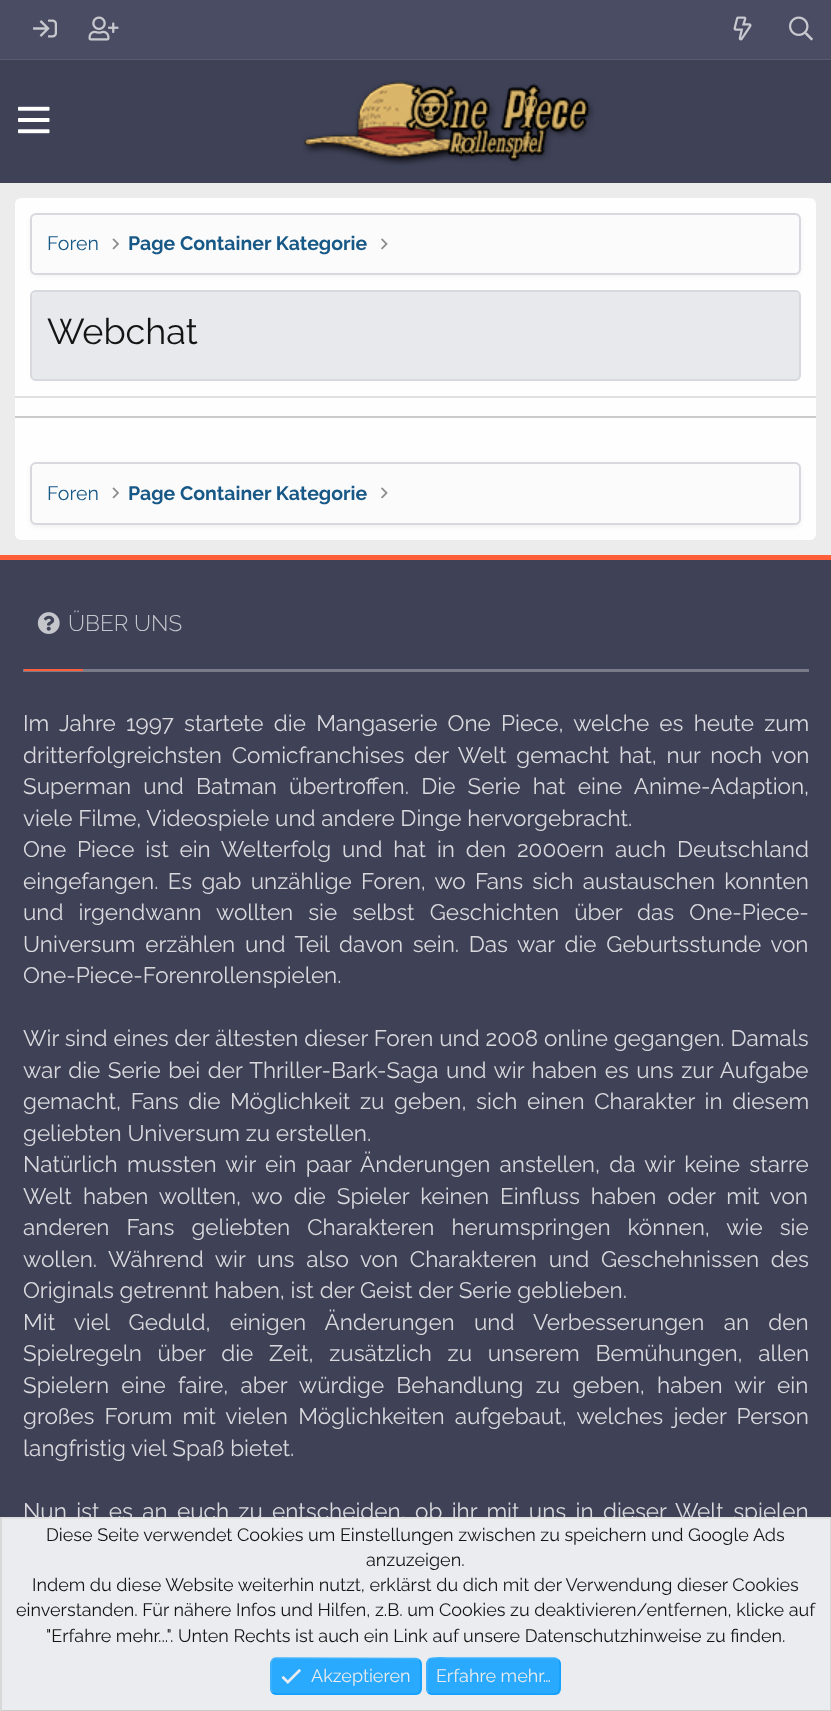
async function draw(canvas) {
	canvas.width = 831;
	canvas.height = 1711;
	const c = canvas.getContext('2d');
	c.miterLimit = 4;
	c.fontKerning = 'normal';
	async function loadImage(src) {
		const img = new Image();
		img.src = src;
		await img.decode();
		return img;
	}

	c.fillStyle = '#ececec';
	c.fillRect(0, 0, 831, 1711);
	c.fillStyle = '#494c62';
	c.fillRect(0, 0, 831, 59);
	c.fillStyle = '#595c70';
	c.fillRect(0, 59, 831, 1);
	c.drawImage(await loadImage('img1.png'), 33, 19, 24, 19);
	c.drawImage(await loadImage('img2.png'), 88, 16, 31, 25);
	c.drawImage(await loadImage('img3.png'), 733, 16, 19, 25);
	c.drawImage(await loadImage('img4.png'), 789, 16, 24, 25);
	c.fillStyle = '#3f4257';
	c.fillRect(0, 60, 831, 123);
	c.drawImage(await loadImage('img5.png'), 18, 106, 32, 28);
	c.drawImage(await loadImage('img6.png'), 303, 80, 291, 86);
	c.fillStyle = '#fefefe';
	c.beginPath();
	c.roundRect(15, 198, 801, 342, 6);
	c.fill();
	c.fillStyle = '#0000000d';
	c.filter = 'blur(2px)';
	c.beginPath();
	c.roundRect(30, 215, 771, 61, 6);
	c.fill();
	c.filter = 'none';
	c.fillStyle = '#fbfbfb';
	c.beginPath();
	c.roundRect(31, 214, 769, 60, 5);
	c.fill();
	c.strokeStyle = '#d7d9df';
	c.lineWidth = 2;
	c.stroke();
	c.font = '19.5px Raleway';
	c.fillStyle = '#185886';
	c.fillText('Foren', 47, 250);
	c.drawImage(await loadImage('img7.png'), 112, 238, 7, 12);
	c.font = 'bold 19.5px Raleway';
	c.fillText('Page Container Kategorie', 128, 250);
	c.drawImage(await loadImage('img8.png'), 381, 238, 7, 12);
	c.fillStyle = '#e8e9ed';
	c.beginPath();
	c.roundRect(30, 290, 771, 91, 6);
	c.fill();
	c.fillStyle = '#f8f8fa';
	c.beginPath();
	c.moveTo(36, 292);
	c.lineTo(795, 292);
	c.bezierCurveTo(797, 292, 800, 295, 800, 297);
	c.lineTo(800, 296);
	c.bezierCurveTo(800, 293, 798, 291, 795, 291);
	c.lineTo(37, 291);
	c.bezierCurveTo(34, 291, 32, 293, 32, 296);
	c.lineTo(32, 297);
	c.bezierCurveTo(32, 295, 34, 292, 36, 292);
	c.closePath();
	c.fill();
	c.beginPath();
	c.roundRect(31, 291, 769, 89, 5);
	c.stroke();
	c.font = '36px Raleway';
	c.fillStyle = '#141414';
	c.fillText('Webchat', 47, 344);
	c.fillStyle = '#dfdfdf';
	c.fillRect(15, 396, 801, 2);
	c.fillStyle = '#cbcbcb';
	c.fillRect(15, 416, 801, 2);
	c.fillStyle = '#0000000d';
	c.filter = 'blur(2px)';
	c.beginPath();
	c.roundRect(30, 464, 771, 63, 6);
	c.fill();
	c.filter = 'none';
	c.fillStyle = '#fbfbfb';
	c.beginPath();
	c.roundRect(31, 463, 769, 61, 5);
	c.fill();
	c.stroke();
	c.font = '19.5px Raleway';
	c.fillStyle = '#185886';
	c.fillText('Foren', 47, 500);
	c.drawImage(await loadImage('img7.png'), 112, 487, 7, 12);
	c.font = 'bold 19.5px Raleway';
	c.fillText('Page Container Kategorie', 128, 500);
	c.drawImage(await loadImage('img8.png'), 381, 487, 7, 12);
	c.fillStyle = '#3f4257';
	c.fillRect(0, 560, 831, 957);
	c.fillStyle = '#ff5e3a';
	c.fillRect(0, 555, 831, 5);
	c.drawImage(await loadImage('img9.png'), 37, 612, 23, 22);
	c.font = '300 22.5px Raleway';
	c.fillStyle = '#c5c6cd';
	c.fillText('ÜBER UNS', 68, 631);
	c.fillStyle = '#797b89';
	c.fillRect(23, 669, 786, 3);
	c.fillStyle = '#ff5e3a';
	c.fillRect(24, 669, 59, 2);
	c.wordSpacing = '4.5px';
	c.font = '22.5px Raleway';
	c.fillStyle = '#d9d9dd';
	c.fillText('Im Jahre 1997 startete die Mangaserie One Piece, welche es heute zum', 23, 731);
	c.wordSpacing = '4px';
	c.fillText('dritterfolgreichsten Comicfranchises der Welt gemacht hat, nur noch von', 23, 763);
	c.wordSpacing = '6.5px';
	c.fillText('Superman und Batman übertroffen. Die Serie hat eine Anime-Adaption,', 23, 794);
	c.wordSpacing = '0px';
	c.fillText('viele Filme, Videospiele und andere Dinge hervorgebracht.', 23, 826);
	c.wordSpacing = '5.1px';
	c.fillText('One Piece ist ein Welterfolg und hat in den 2000ern auch Deutschland', 23, 857);
	c.wordSpacing = '3.5px';
	c.fillText('eingefangen. Es gab unzählige Foren, wo Fans sich austauschen konnten', 23, 889);
	c.wordSpacing = '9.25px';
	c.fillText('und irgendwann wollten sie selbst Geschichten über das One-Piece-', 23, 920);
	c.wordSpacing = '4px';
	c.fillText('Universum erzählen und Teil davon sein. Das war die Geburtsstunde von', 23, 952);
	c.wordSpacing = '0px';
	c.fillText('One-Piece-Forenrollenspielen.', 23, 983);
	c.wordSpacing = '0.1px';
	c.fillText('Wir sind eines der ältesten dieser Foren und 2008 online gegangen. Damals', 23, 1046);
	c.wordSpacing = '1.8px';
	c.fillText('war die Serie bei der Thriller-Bark-Saga und wir haben es uns zur Aufgabe', 23, 1078);
	c.wordSpacing = '3.9px';
	c.fillText('gemacht, Fans die Möglichkeit zu geben, sich einen Charakter in diesem', 23, 1109);
	c.wordSpacing = '0px';
	c.fillText('geliebten Universum zu erstellen.', 23, 1141);
	c.wordSpacing = '3.6px';
	c.fillText('Natürlich mussten wir ein paar Änderungen anstellen, da wir keine starre', 23, 1172);
	c.wordSpacing = '5.25px';
	c.fillText('Welt haben wollten, wo die Spieler keinen Einfluss haben oder mit von', 23, 1204);
	c.wordSpacing = '11.25px';
	c.fillText('anderen Fans geliebten Charakteren herumspringen können, wie sie', 23, 1235);
	c.wordSpacing = '6px';
	c.fillText('wollen. Während wir uns also von Charakteren und Geschehnissen des', 23, 1267);
	c.wordSpacing = '0px';
	c.fillText('Originals getrennt haben, ist der Geist der Serie geblieben.', 23, 1298);
	c.wordSpacing = '13.5px';
	c.fillText('Mit viel Geduld, einigen Änderungen und Verbesserungen an den', 23, 1330);
	c.wordSpacing = '10px';
	c.fillText('Spielregeln über die Zeit, zusätzlich zu unserem Bemühungen, allen', 23, 1361);
	c.wordSpacing = '6.5px';
	c.fillText('Spielern eine faire, aber würdige Behandlung zu geben, haben wir ein', 23, 1393);
	c.wordSpacing = '4.5px';
	c.fillText('großes Forum mit vielen Möglichkeiten aufgebaut, welches jeder Person', 23, 1424);
	c.wordSpacing = '0px';
	c.fillText('langfristig viel Spaß bietet.', 23, 1456);
	c.wordSpacing = '3.6px';
	c.fillText('Nun ist es an euch zu entscheiden, ob ihr mit uns in dieser Welt spielen', 23, 1519);
	for (const [x, y, w, h, color] of [
		[2, 1519, 828, 191, '#ebecef'],
		[0, 1517, 831, 2, '#dfdfdf'],
		[830, 1517, 1, 194, '#d8d8d8'],
		[0, 1710, 831, 1, '#cbcbcb'],
		[0, 1517, 2, 194, '#d8d8d8'],
	]) {
		c.fillStyle = color;
		c.fillRect(x, y, w, h);
	}
	c.wordSpacing = '0px';
	c.font = '18px Raleway';
	c.fillStyle = '#141414';
	for (const [text, x, y] of [
		['Diese Seite verwendet Cookies um Einstellungen zwischen zu speichern und Google Ads', 46, 1541],
		['anzuzeigen.', 366, 1566],
		['Indem du diese Website weiterhin nutzt, erklärst du dich mit der Verwendung dieser Cookies', 32, 1591],
		['einverstanden. Für nähere Infos und Hilfen, z.B. um Cookies zu deaktivieren/entfernen, klicke auf', 16, 1616],
		['"Erfahre mehr...". Unten Rechts ist auch ein Link auf unsere Datenschutzhinweise zu finden.', 46, 1642],
	]) {
		c.fillText(text, x, y);
	}
	c.fillStyle = '#29aafe';
	c.beginPath();
	c.roundRect(270, 1658, 152, 37, 6);
	c.fill();
	c.beginPath();
	c.moveTo(419, 1660);
	c.bezierCurveTo(422, 1662.5, 421, 1672.5, 421, 1676);
	c.lineTo(421, 1685);
	c.bezierCurveTo(421, 1688.5, 421, 1694, 415.5, 1694);
	c.lineTo(275.5, 1694);
	c.lineTo(272.5, 1692.5);
	c.strokeStyle = '#10a0fe';
	c.lineWidth = 1.5;
	c.stroke();
	c.beginPath();
	c.moveTo(272.5, 1692.5);
	c.bezierCurveTo(269.5, 1690, 271, 1680, 271, 1676);
	c.lineTo(271, 1668);
	c.bezierCurveTo(271, 1664, 270.5, 1658.5, 276, 1658);
	c.lineTo(416, 1658.5);
	c.lineTo(419, 1660);
	c.strokeStyle = '#42b4fe';
	c.stroke();
	c.drawImage(await loadImage('img10.png'), 281, 1669, 20, 15);
	c.fillStyle = '#ebecef';
	c.fillText('Akzeptieren', 311, 1682);
	c.fillStyle = '#29aafe';
	c.beginPath();
	c.roundRect(426, 1658, 135, 37, 6);
	c.fill();
	c.beginPath();
	c.moveTo(558.5, 1660);
	c.bezierCurveTo(561.5, 1662.5, 560, 1672.5, 560, 1676);
	c.bezierCurveTo(560, 1699, 561.5, 1694, 534.5, 1694);
	c.lineTo(432, 1694);
	c.bezierCurveTo(430.5, 1694, 429.5, 1693.5, 428.5, 1692.5);
	c.strokeStyle = '#10a0fe';
	c.stroke();
	c.beginPath();
	c.moveTo(428.5, 1692.5);
	c.bezierCurveTo(425.5, 1690, 427, 1680, 427, 1676);
	c.bezierCurveTo(427, 1653.5, 425.5, 1658, 452.5, 1658);
	c.lineTo(555, 1658);
	c.bezierCurveTo(556.5, 1658.5, 557.5, 1659, 558.5, 1660);
	c.strokeStyle = '#42b4fe';
	c.stroke();
	c.fillStyle = '#ebecef';
	c.fillText('Erfahre mehr…', 436, 1682);
}

draw(document.querySelector('canvas'));
